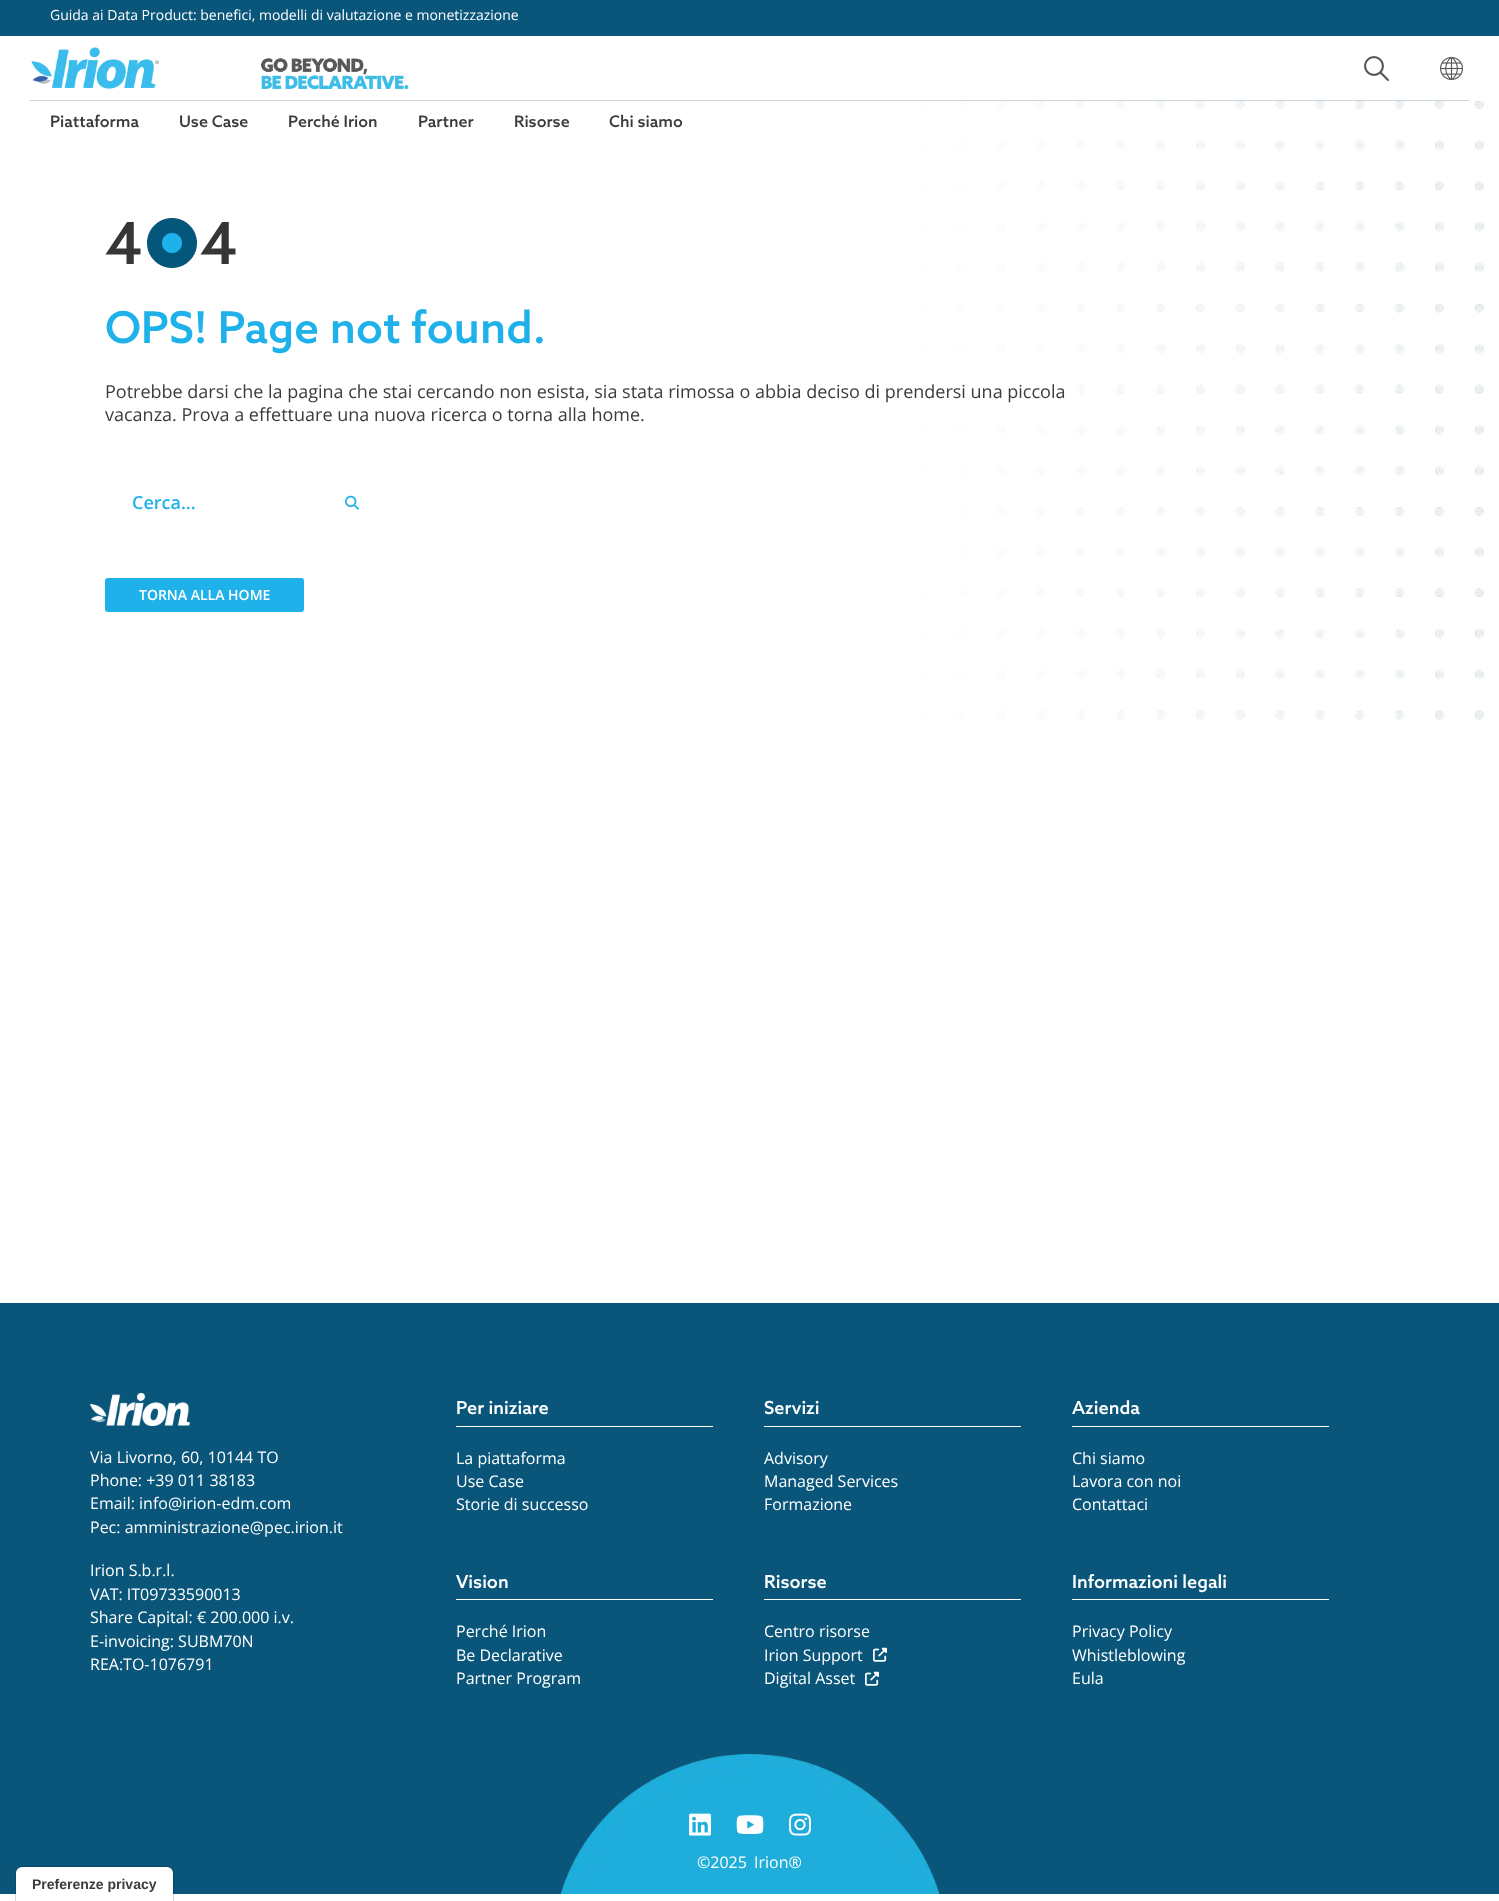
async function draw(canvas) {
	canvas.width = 1499;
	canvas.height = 1901;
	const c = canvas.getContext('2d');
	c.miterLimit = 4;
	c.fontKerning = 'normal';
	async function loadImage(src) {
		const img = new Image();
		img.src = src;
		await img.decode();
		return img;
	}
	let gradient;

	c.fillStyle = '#fff';
	c.fillRect(0, 0, 1499, 1901);
	c.fillStyle = '#09567a';
	c.fillRect(0, 0, 1499, 36);
	c.font = '14px Open Sans';
	c.fillStyle = '#fff';
	c.fillText('Guida ai Data Product: benefici, modelli di valutazione e monetizzazione', 50, 20);
	c.fillStyle = '#cad5e0';
	c.fillRect(30, 100, 1439, 1);
	c.drawImage(await loadImage('img1.png'), 31, 47, 129, 42);
	c.drawImage(await loadImage('img2.png'), 261, 58, 148, 32);
	c.drawImage(await loadImage('img3.png'), 1364, 56, 25, 25);
	c.drawImage(await loadImage('img4.png'), 1440, 57, 24, 23);
	c.font = '500 16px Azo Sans';
	c.fillStyle = '#3c3c3e';
	for (const [text, x, y] of [
		['Piattaforma', 50, 127],
		['Use Case', 179, 127],
		['Perché Irion', 288, 127],
		['Partner', 418, 127],
		['Risorse', 514, 127],
		['Chi siamo', 609, 127],
	]) {
		c.fillText(text, x, y);
	}
	c.drawImage(await loadImage('img5.png'), 917, 101, 567, 619);
	c.drawImage(await loadImage('img6.png'), 105, 218, 131, 50);
	c.font = '500 44px Azo Sans';
	c.fillStyle = '#1fb1ea';
	c.fillText('OPS! Page not found.', 105, 343);
	gradient = c.createLinearGradient(0, 413, 1499, 412);
	gradient.addColorStop(0.6, '#fff');
	gradient.addColorStop(1, '#ffffff80');
	c.fillStyle = gradient;
	c.fillRect(917, 101, 567, 619);
	c.font = '18px Open Sans';
	c.fillStyle = '#3c3c3e';
	c.fillText('Potrebbe darsi che la pagina che stai cercando non esista, sia stata rimossa o abbia deciso di prendersi una piccola', 105, 398);
	c.fillText('vacanza. Prova a effettuare una nuova ricerca o torna alla home.', 105, 421);
	c.font = '600 18px Open Sans';
	c.fillStyle = '#1fb1ea';
	c.fillText('Cerca...', 132, 509);
	c.drawImage(await loadImage('img7.png'), 345, 495, 14, 15);
	c.beginPath();
	c.roundRect(106, 579, 197, 32, 2);
	c.fill();
	c.strokeStyle = '#1fb1ea';
	c.lineWidth = 2;
	c.stroke();
	c.font = '600 14px Open Sans';
	c.fillStyle = '#fff';
	c.fillText('TORNA ALLA HOME', 139, 600);
	c.fillStyle = '#09567a';
	c.fillRect(0, 1303, 1499, 591);
	c.drawImage(await loadImage('img8.png'), 90, 1393, 100, 33);
	c.font = '16px Open Sans';
	c.fillStyle = '#fff';
	for (const [text, x, y] of [
		['Via Livorno, 60, 10144 TO', 90, 1463],
		['Phone: +39 011 38183', 90, 1486],
		['Email: info@irion-edm.com', 90, 1509],
		['Pec: amministrazione@pec.irion.it', 90, 1533],
		['Irion S.b.r.l.', 90, 1576],
		['VAT: IT09733590013', 90, 1600],
		['Share Capital: € 200.000 i.v.', 90, 1623],
		['E-invoicing: SUBM70N', 90, 1647],
		['REA:TO-1076791', 90, 1670],
	]) {
		c.fillText(text, x, y);
	}
	c.fillRect(456, 1426, 257, 1);
	c.font = '500 18px Azo Sans';
	c.fillText('Per iniziare', 456, 1414);
	c.font = '16px Open Sans';
	for (const [text, x, y] of [
		['La piattaforma', 456, 1464],
		['Use Case', 456, 1487],
		['Storie di successo', 456, 1510],
	]) {
		c.fillText(text, x, y);
	}
	c.fillRect(764, 1426, 257, 1);
	c.font = '500 18px Azo Sans';
	c.fillText('Servizi', 764, 1414);
	c.font = '16px Open Sans';
	for (const [text, x, y] of [
		['Advisory', 764, 1464],
		['Managed Services', 764, 1487],
		['Formazione', 764, 1510],
	]) {
		c.fillText(text, x, y);
	}
	c.fillRect(1072, 1426, 257, 1);
	c.font = '500 18px Azo Sans';
	c.fillText('Azienda', 1072, 1414);
	c.font = '16px Open Sans';
	for (const [text, x, y] of [
		['Chi siamo', 1072, 1464],
		['Lavora con noi', 1072, 1487],
		['Contattaci', 1072, 1510],
	]) {
		c.fillText(text, x, y);
	}
	c.fillRect(456, 1599, 257, 1);
	c.font = '500 18px Azo Sans';
	c.fillText('Vision', 456, 1588);
	c.font = '16px Open Sans';
	for (const [text, x, y] of [
		['Perché Irion', 456, 1637],
		['Be Declarative', 456, 1661],
		['Partner Program', 456, 1684],
	]) {
		c.fillText(text, x, y);
	}
	c.fillRect(764, 1599, 257, 1);
	c.font = '500 18px Azo Sans';
	c.fillText('Risorse', 764, 1588);
	c.font = '16px Open Sans';
	c.fillText('Centro risorse', 764, 1637);
	c.fillText('Irion Support', 764, 1661);
	c.drawImage(await loadImage('img9.png'), 873, 1647, 14, 15);
	c.fillText('Digital Asset', 764, 1684);
	c.drawImage(await loadImage('img9.png'), 865, 1671, 14, 15);
	c.fillRect(1072, 1599, 257, 1);
	c.font = '500 18px Azo Sans';
	c.fillText('Informazioni legali', 1072, 1588);
	c.font = '16px Open Sans';
	for (const [text, x, y] of [
		['Privacy Policy', 1072, 1637],
		['Whistleblowing', 1072, 1661],
		['Eula', 1072, 1684],
	]) {
		c.fillText(text, x, y);
	}
	c.drawImage(await loadImage('img10.png'), 560, 1754, 380, 140);
	c.drawImage(await loadImage('img11.png'), 689, 1813, 22, 23);
	c.drawImage(await loadImage('img12.png'), 736, 1815, 28, 19);
	c.drawImage(await loadImage('img13.png'), 789, 1813, 22, 23);
	c.fillText('©2025', 697, 1868);
	c.fillText('Irion®', 754, 1868);
	c.beginPath();
	c.moveTo(22, 1866.5);
	c.lineTo(167, 1866.5);
	c.bezierCurveTo(170.5, 1866.5, 173.5, 1869.5, 173.5, 1873);
	c.lineTo(173.5, 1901.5);
	c.lineTo(15.5, 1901.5);
	c.lineTo(15.5, 1873);
	c.bezierCurveTo(15.5, 1869.5, 18.5, 1866.5, 22, 1866.5);
	c.closePath();
	c.strokeStyle = '#00000026';
	c.lineWidth = 1;
	c.stroke();
	c.beginPath();
	c.roundRect(16, 1867, 157, 34, [6, 6, 0, 0]);
	c.fill();
	c.font = 'bold 14px Liberation Sans';
	c.fillStyle = '#3c3c3e';
	c.fillText('Preferenze privacy', 32, 1889);
}

draw(document.querySelector('canvas'));
